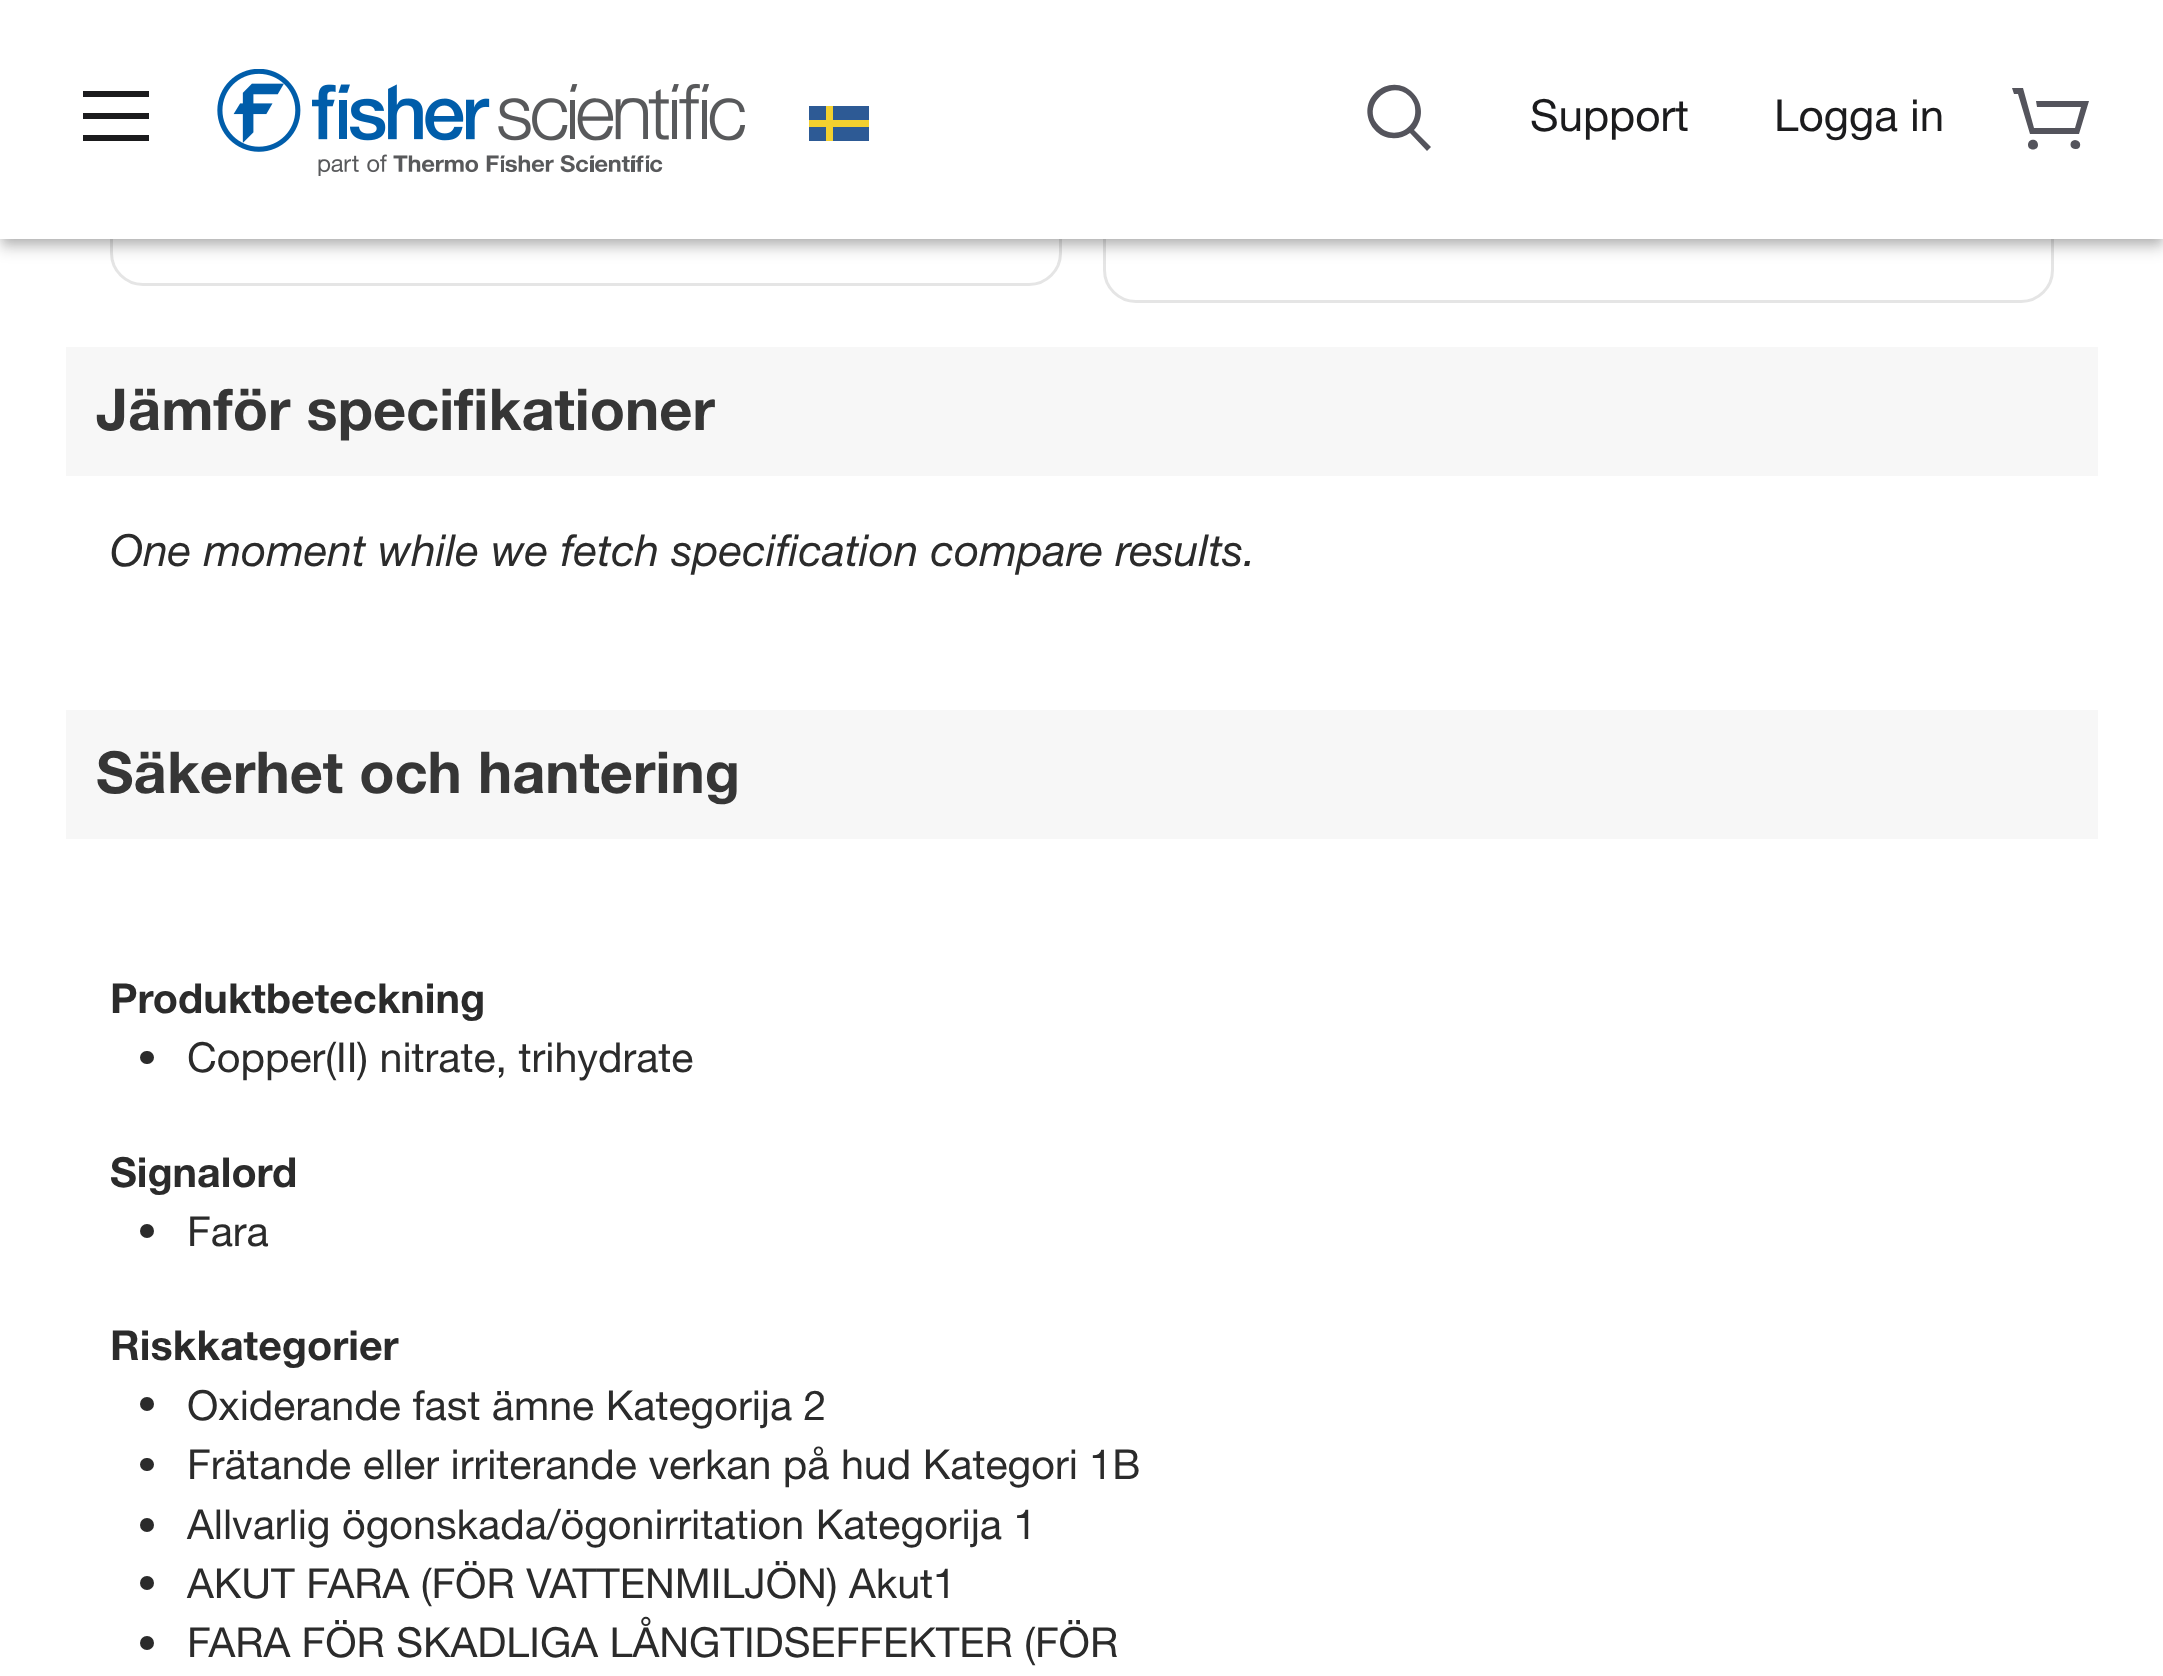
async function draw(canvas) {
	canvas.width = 2163;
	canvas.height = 1676;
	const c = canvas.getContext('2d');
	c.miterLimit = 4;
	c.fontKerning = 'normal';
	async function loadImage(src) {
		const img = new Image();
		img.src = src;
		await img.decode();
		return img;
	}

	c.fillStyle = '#fff';
	c.fillRect(0, 0, 2163, 1676);
	c.beginPath();
	c.roundRect(111.5, -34.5, 949, 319, 31.5);
	c.strokeStyle = '#e5e5e5';
	c.lineWidth = 3;
	c.stroke();
	c.beginPath();
	c.roundRect(1104.5, -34.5, 948, 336, 31.5);
	c.stroke();
	c.fillStyle = '#00000024';
	c.filter = 'blur(7px)';
	c.beginPath();
	c.rect(0, 11, 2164, 239);
	c.fill();
	c.filter = 'none';
	c.fillStyle = '#00000033';
	c.filter = 'blur(5.5px)';
	c.beginPath();
	c.rect(3, 8, 2159, 234);
	c.fill();
	c.filter = 'none';
	for (const [x, y, w, h, color] of [
		[0, 0, 2163, 239, '#fff'],
		[83, 113, 66, 6, '#1b1b1d'],
		[83, 91, 66, 6, '#1b1b1d'],
		[83, 135, 66, 6, '#1b1b1d'],
	]) {
		c.fillStyle = color;
		c.fillRect(x, y, w, h);
	}
	c.drawImage(await loadImage('img1.png'), 217, 69, 528, 107);
	for (const [x, y, w, h, color] of [
		[809, 106, 60, 35, '#2d5a95'],
		[826, 106, 7, 35, '#f3d02f'],
		[809, 120, 60, 7, '#f3d02f'],
	]) {
		c.fillStyle = color;
		c.fillRect(x, y, w, h);
	}
	c.fillStyle = '#54545c';
	c.beginPath();
	c.moveTo(1431, 147);
	c.lineTo(1414, 130);
	c.bezierCurveTo(1424, 119, 1423, 103, 1413, 93);
	c.bezierCurveTo(1403, 82, 1386, 82, 1375, 93);
	c.bezierCurveTo(1365, 103, 1365, 118, 1374, 129);
	c.bezierCurveTo(1383, 140, 1399, 141, 1410, 133);
	c.lineTo(1427, 151);
	c.closePath();
	c.moveTo(1379, 126);
	c.bezierCurveTo(1360, 107, 1389, 78, 1409, 96);
	c.bezierCurveTo(1412, 99, 1415, 104, 1415, 108);
	c.bezierCurveTo(1418, 129, 1393, 141, 1379, 126);
	c.closePath();
	c.fill();
	c.font = '44px Helvetica Neue';
	c.fillStyle = '#1b1b1d';
	c.fillText('Support', 1530, 131);
	c.fillText('Logga in', 1774, 131);
	c.fillStyle = '#54545c';
	c.beginPath();
	c.moveTo(2038, 145);
	c.bezierCurveTo(2038, 151, 2028, 151, 2028, 145);
	c.bezierCurveTo(2028, 138, 2038, 138, 2038, 145);
	c.closePath();
	c.moveTo(2075, 140);
	c.bezierCurveTo(2069, 140, 2069, 149, 2075, 149);
	c.bezierCurveTo(2082, 150, 2082, 140, 2075, 140);
	c.closePath();
	c.moveTo(2079, 134);
	c.lineTo(2089, 101);
	c.lineTo(2036, 101);
	c.lineTo(2037, 107);
	c.lineTo(2081, 107);
	c.lineTo(2075, 128);
	c.lineTo(2034, 128);
	c.lineTo(2023, 88);
	c.lineTo(2012, 88);
	c.lineTo(2014, 94);
	c.lineTo(2018, 94);
	c.lineTo(2030, 134);
	c.closePath();
	c.fill();
	c.fillStyle = '#f7f7f7';
	c.fillRect(66, 347, 2032, 129);
	c.font = 'bold 57.75px Helvetica Neue';
	c.fillStyle = '#363636';
	c.fillText('Jämför specifikationer', 96, 430);
	c.font = 'italic 44px Helvetica Neue';
	c.fillStyle = '#2b2b2b';
	c.fillText('One moment while we fetch specification compare results.', 110, 566);
	c.fillStyle = '#f7f7f7';
	c.fillRect(66, 710, 2032, 129);
	c.font = 'bold 57.75px Helvetica Neue';
	c.fillStyle = '#363636';
	c.fillText('Säkerhet och hantering', 96, 793);
	c.font = 'bold 41.25px Helvetica Neue';
	c.fillStyle = '#2b2b2b';
	c.fillText('Produktbeteckning', 110, 1013);
	c.beginPath();
	c.roundRect(140, 1051, 14, 13, 6.5);
	c.fill();
	c.font = '41.25px Helvetica Neue';
	c.fillText('Copper(II) nitrate, trihydrate', 187, 1072);
	c.font = 'bold 41.25px Helvetica Neue';
	c.fillText('Signalord', 110, 1187);
	c.beginPath();
	c.arc(147, 1231, 7, 0, 2 * Math.PI);
	c.fill();
	c.font = '41.25px Helvetica Neue';
	c.fillText('Fara', 187, 1246);
	c.font = 'bold 41.25px Helvetica Neue';
	c.fillText('Riskkategorier', 110, 1360);
	c.beginPath();
	c.arc(147, 1404, 7, 0, 2 * Math.PI);
	c.fill();
	c.font = '41.25px Helvetica Neue';
	c.fillText('Oxiderande fast ämne Kategorija 2', 187, 1420);
	c.beginPath();
	c.roundRect(140, 1458, 14, 13, 6.5);
	c.fill();
	c.fillText('Frätande eller irriterande verkan på hud Kategori 1B', 187, 1479);
	c.beginPath();
	c.arc(147, 1525, 7, 0, 2 * Math.PI);
	c.fill();
	c.fillText('Allvarlig ögonskada/ögonirritation Kategorija 1', 187, 1539);
	c.beginPath();
	c.arc(147, 1583, 7, 0, 2 * Math.PI);
	c.fill();
	c.fillText('AKUT FARA (FÖR VATTENMILJÖN) Akut1', 187, 1598);
	c.beginPath();
	c.arc(147, 1643, 7, 0, 2 * Math.PI);
	c.fill();
	c.fillText('FARA FÖR SKADLIGA LÅNGTIDSEFFEKTER (FÖR', 187, 1657);
}

draw(document.querySelector('canvas'));
